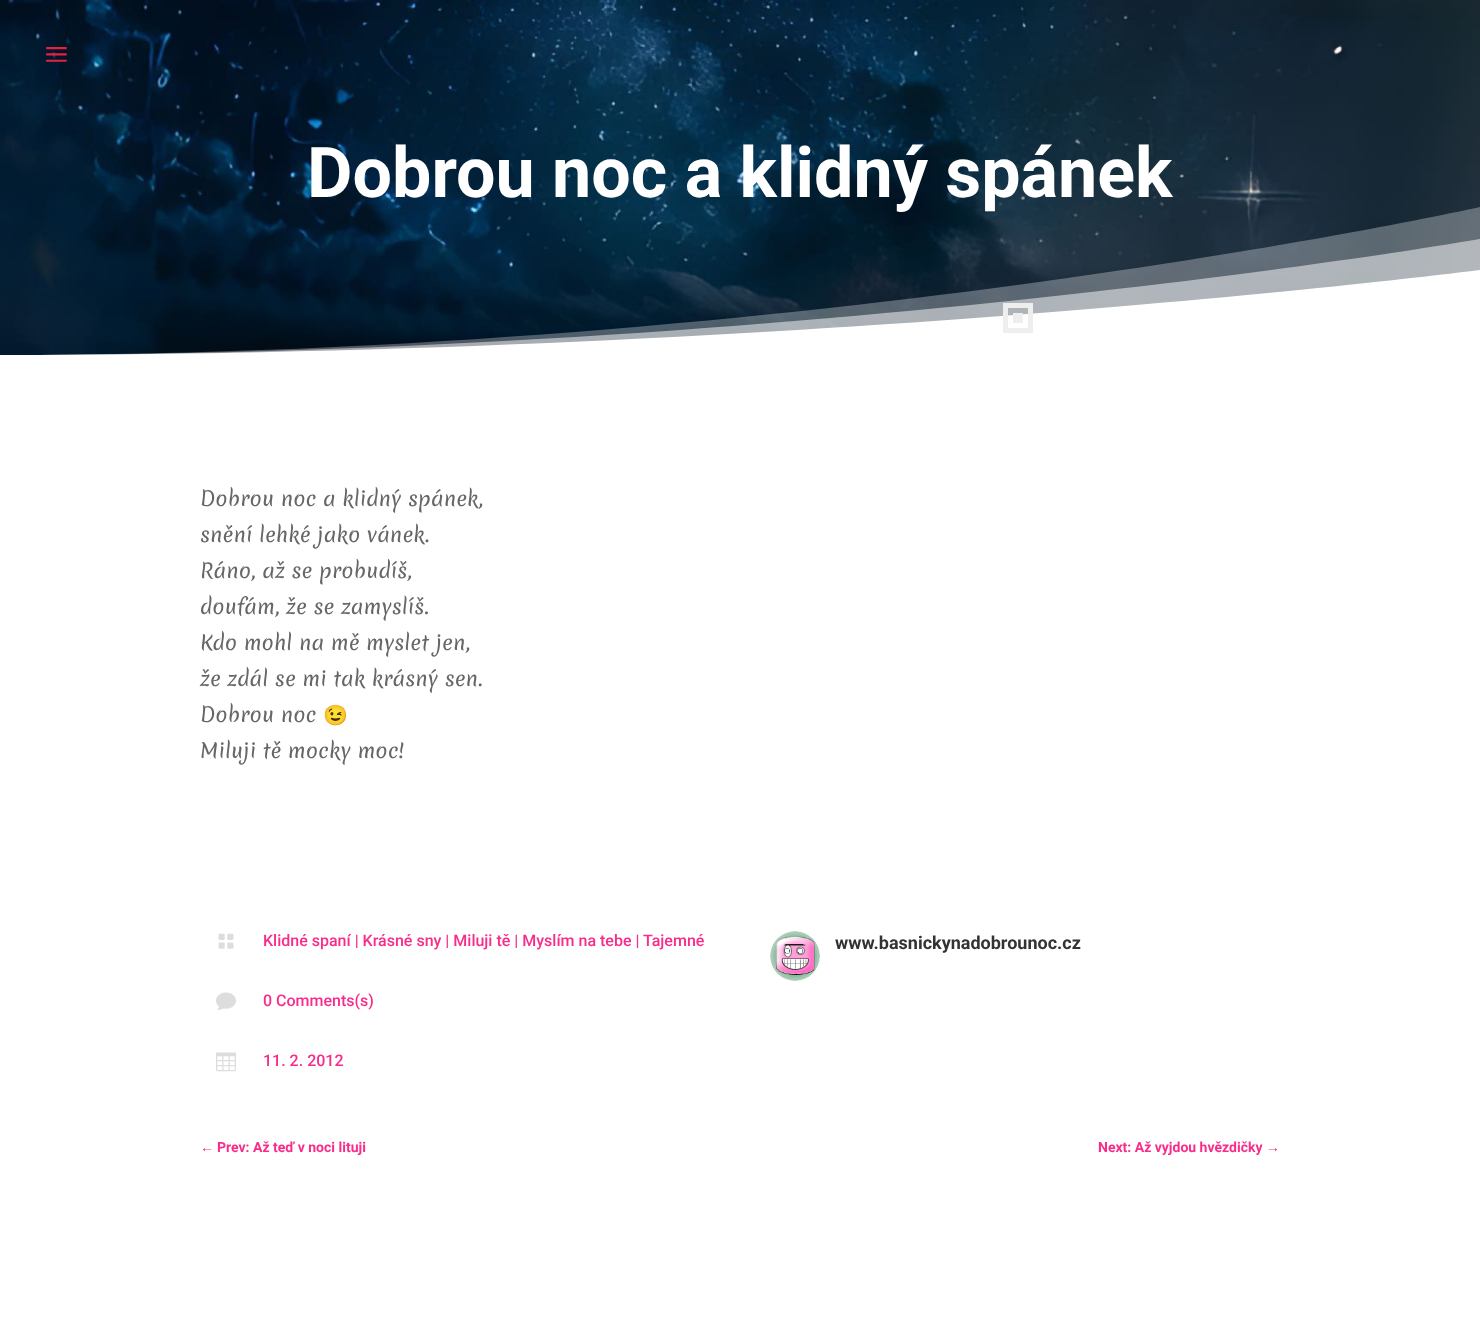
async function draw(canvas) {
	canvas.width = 1480;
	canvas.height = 1317;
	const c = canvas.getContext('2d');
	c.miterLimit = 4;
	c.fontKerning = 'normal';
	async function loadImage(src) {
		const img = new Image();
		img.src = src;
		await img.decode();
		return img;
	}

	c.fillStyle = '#fff';
	c.fillRect(0, 0, 1480, 1317);
	c.drawImage(await loadImage('img1.png'), 0, 0, 1480, 355);
	c.font = '44px Liberation Serif';
	c.fillStyle = '#e8203e';
	c.fillText('≡', 44, 69);
	c.fillStyle = '#ffffff4d';
	c.beginPath();
	c.moveTo(1480, 355);
	c.lineTo(0, 355);
	c.bezierCurveTo(817, 355, 1480, 207, 1480, 207);
	c.closePath();
	c.fill();
	c.font = 'bold 70px Roboto';
	c.fillStyle = '#fff';
	c.fillText('Dobrou noc a klidný spánek', 307, 197);
	c.fillStyle = '#ffffff80';
	c.beginPath();
	c.moveTo(1480, 355);
	c.lineTo(0, 355);
	c.bezierCurveTo(817, 355, 1480, 239, 1480, 239);
	c.closePath();
	c.fill();
	c.fillStyle = '#fff';
	c.beginPath();
	c.moveTo(1480, 355);
	c.lineTo(0, 355);
	c.bezierCurveTo(817, 355, 1480, 270, 1480, 270);
	c.closePath();
	c.fill();
	c.strokeStyle = '#eee';
	c.lineWidth = 5;
	c.strokeRect(1005.5, 305.5, 25, 25);
	c.fillStyle = '#eee';
	c.fillRect(1013, 313, 10, 10);
	c.font = '20px Merienda';
	c.fillStyle = '#666';
	for (const [text, x, y] of [
		['Dobrou noc a klidný spánek,', 200, 506],
		['snění lehké jako vánek.', 200, 542],
		['Ráno, až se probudíš,', 200, 578],
		['doufám, že se zamyslíš.', 200, 614],
		['Kdo mohl na mě myslet jen,', 200, 650],
		['že zdál se mi tak krásný sen.', 200, 686],
		['Dobrou noc', 200, 722],
	]) {
		c.fillText(text, x, y);
	}
	c.font = '20px Noto Color Emoji';
	c.fillText('😉', 323, 722);
	c.font = '20px Merienda';
	c.fillText('Miluji tě mocky moc!', 200, 758);
	c.drawImage(await loadImage('img2.png'), 218, 933, 16, 16);
	c.font = '500 16px Roboto';
	c.fillStyle = '#f92c8b';
	c.fillText('Klidné spaní | Krásné sny | Miluji tě | Myslím na tebe | Tajemné', 263, 946);
	c.drawImage(await loadImage('img3.png'), 216, 992, 20, 18);
	c.fillText('0 Comments(s)', 263, 1006);
	c.drawImage(await loadImage('img4.png'), 216, 1052, 20, 20);
	c.fillText('11. 2. 2012', 263, 1066);
	c.drawImage(await loadImage('img5.png'), 770, 931, 50, 50);
	c.font = 'bold 18px Roboto';
	c.fillStyle = '#333';
	c.fillText('www.basnickynadobrounoc.cz', 835, 949);
	c.font = 'bold 14px Liberation Sans';
	c.fillStyle = '#f92c8b';
	c.fillText('←', 200, 1152);
	c.font = 'bold 14px Roboto';
	c.fillText('Prev: Až teď v noci lituji', 217, 1152);
	c.fillText('Next: Až vyjdou hvězdičky', 1098, 1152);
	c.font = 'bold 14px Liberation Sans';
	c.fillText('→', 1266, 1152);
}

draw(document.querySelector('canvas'));
